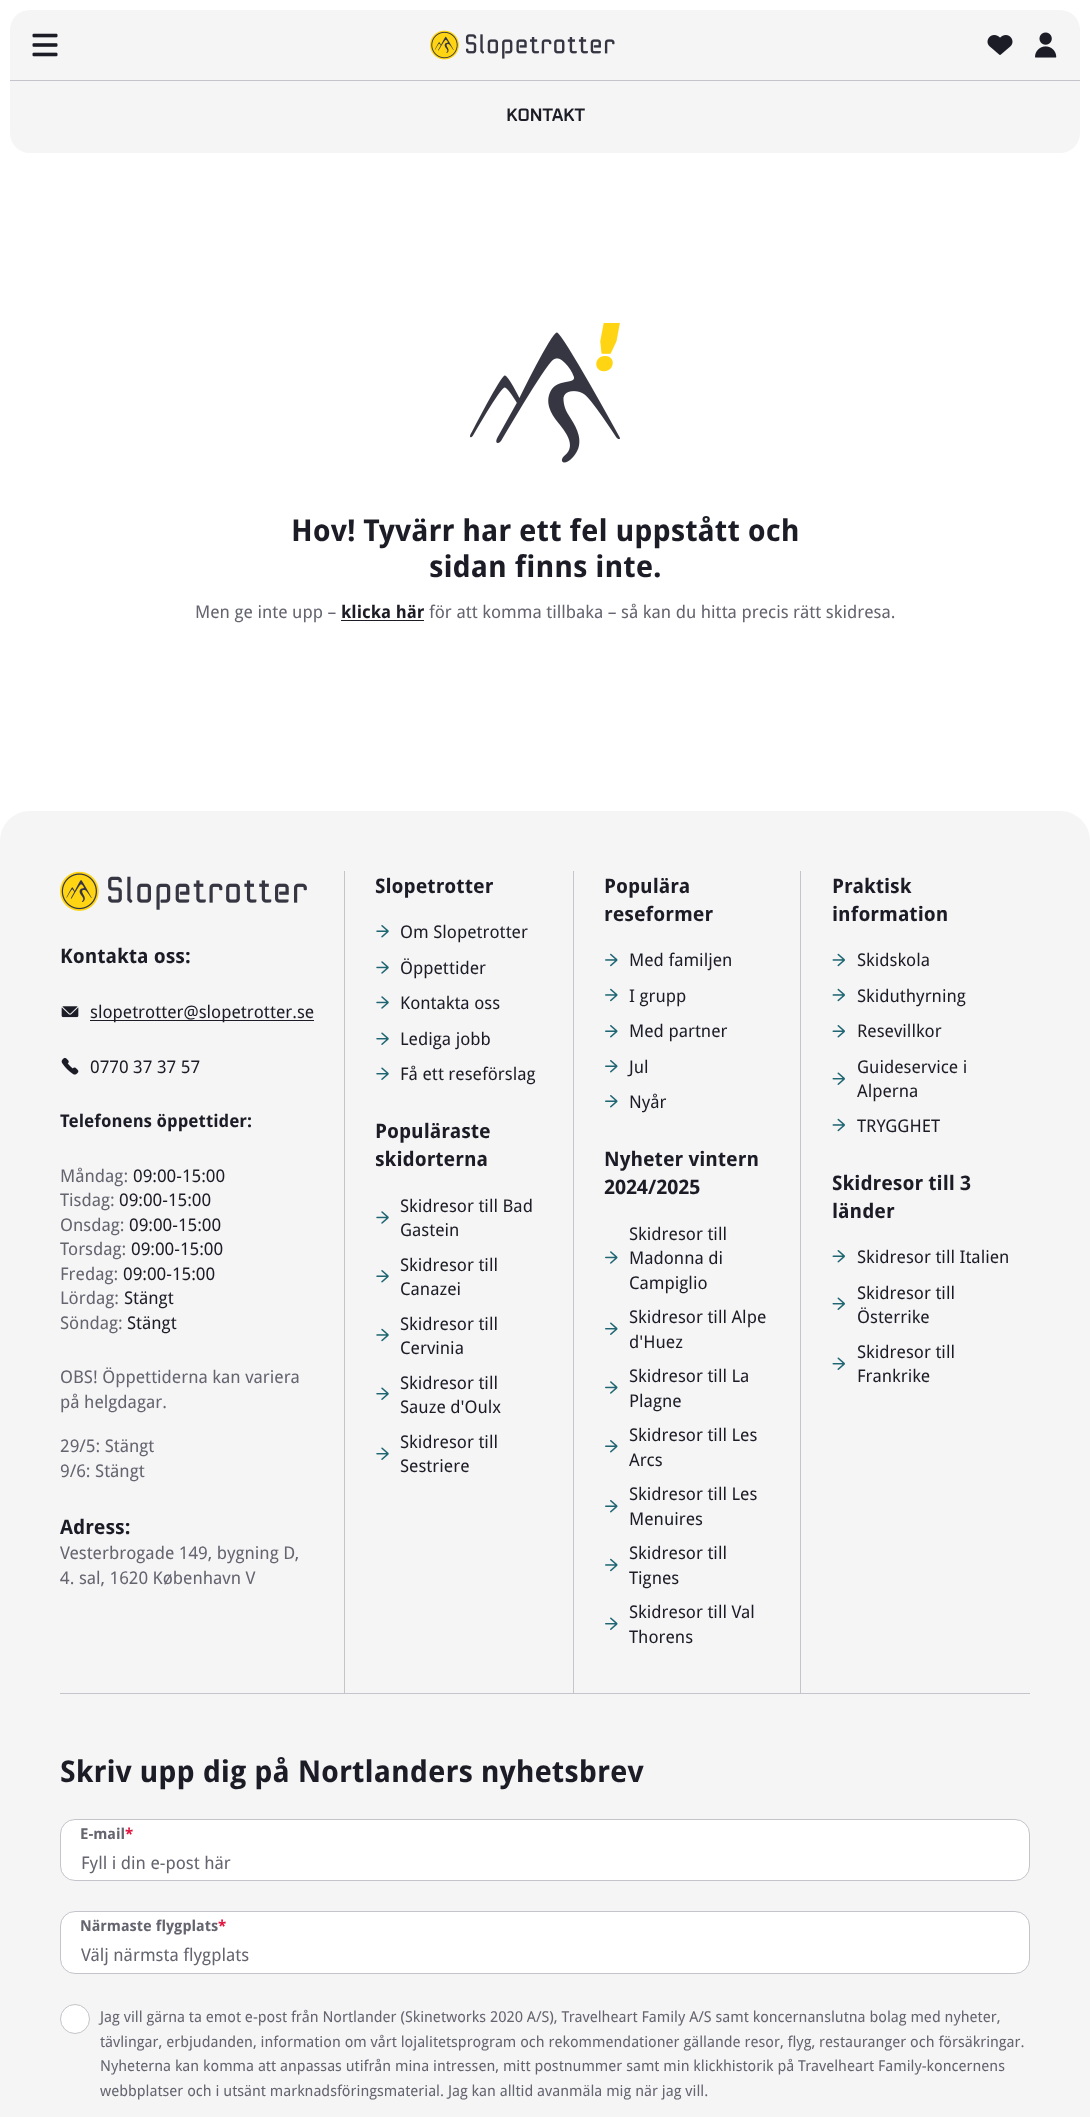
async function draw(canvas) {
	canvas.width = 1090;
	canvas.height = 2117;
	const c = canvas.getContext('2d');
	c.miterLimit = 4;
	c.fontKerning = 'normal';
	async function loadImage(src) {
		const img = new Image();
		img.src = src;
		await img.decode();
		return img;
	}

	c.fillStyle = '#fff';
	c.fillRect(0, 0, 1090, 2117);
	c.fillStyle = '#f5f5f6';
	c.beginPath();
	c.roundRect(10, 10, 1070, 143, 20);
	c.fill();
	c.drawImage(await loadImage('img1.png'), 32, 33, 26, 24);
	c.drawImage(await loadImage('img2.png'), 430, 30, 185, 30);
	c.drawImage(await loadImage('img3.png'), 987, 35, 26, 20);
	c.drawImage(await loadImage('img4.png'), 1035, 32, 22, 26);
	c.fillStyle = '#c4c4ca';
	c.fillRect(10, 80, 1070, 1);
	c.font = 'bold 17.5px Oxanium';
	c.fillStyle = '#1c1c26';
	c.fillText('KONTAKT', 506, 121);
	c.drawImage(await loadImage('img5.png'), 470, 323, 150, 140);
	c.font = 'bold 30px Droid Sans';
	c.fillText('Hov! Tyvärr har ett fel uppstått och', 291, 541);
	c.fillText('sidan finns inte.', 429, 577);
	c.font = '17.5px Droid Sans';
	c.fillStyle = '#656570';
	c.fillText('Men ge inte upp –', 195, 618);
	c.font = 'bold 17.5px Droid Sans';
	c.fillStyle = '#1c1c26';
	c.fillText('klicka här', 341, 618);
	c.fillRect(341, 620, 83, 1);
	c.font = '17.5px Droid Sans';
	c.fillStyle = '#656570';
	c.fillText('för att komma tillbaka – så kan du hitta precis rätt skidresa.', 429, 618);
	c.fillStyle = '#f5f5f6';
	c.beginPath();
	c.moveTo(30, 811);
	c.lineTo(1060, 811);
	c.bezierCurveTo(1076.5, 811, 1090, 824.5, 1090, 841);
	c.lineTo(1090, 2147);
	c.lineTo(0, 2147);
	c.lineTo(0, 841);
	c.bezierCurveTo(0, 824.5, 13.5, 811, 30, 811);
	c.closePath();
	c.fill();
	c.fillStyle = '#c4c4ca';
	c.fillRect(344, 871, 1, 822);
	c.drawImage(await loadImage('img6.png'), 60, 871, 247, 40);
	c.font = 'bold 20px Droid Sans';
	c.fillStyle = '#1c1c26';
	c.fillText('Kontakta oss:', 60, 963);
	c.drawImage(await loadImage('img7.png'), 61, 1006, 18, 12);
	c.fillRect(90, 1020, 224, 1);
	c.font = '17.5px Droid Sans';
	c.fillText('slopetrotter@slopetrotter.se', 90, 1018);
	c.drawImage(await loadImage('img8.png'), 61, 1057, 18, 18);
	c.fillText('0770 37 37 57', 90, 1073);
	c.font = 'bold 17.5px Droid Sans';
	c.fillText('Telefonens öppettider:', 60, 1127);
	c.font = '17.5px Droid Sans';
	c.fillStyle = '#656570';
	c.fillText('Måndag:', 60, 1182);
	c.fillStyle = '#1c1c26';
	c.fillText('09:00-15:00', 133, 1182);
	c.fillStyle = '#656570';
	c.fillText('Tisdag:', 60, 1206);
	c.fillStyle = '#1c1c26';
	c.fillText('09:00-15:00', 119, 1206);
	c.fillStyle = '#656570';
	c.fillText('Onsdag:', 60, 1231);
	c.fillStyle = '#1c1c26';
	c.fillText('09:00-15:00', 129, 1231);
	c.fillStyle = '#656570';
	c.fillText('Torsdag:', 60, 1255);
	c.fillStyle = '#1c1c26';
	c.fillText('09:00-15:00', 131, 1255);
	c.fillStyle = '#656570';
	c.fillText('Fredag:', 60, 1280);
	c.fillStyle = '#1c1c26';
	c.fillText('09:00-15:00', 123, 1280);
	c.fillStyle = '#656570';
	c.fillText('Lördag:', 60, 1304);
	c.fillStyle = '#1c1c26';
	c.fillText('Stängt', 124, 1304);
	c.fillStyle = '#656570';
	c.fillText('Söndag:', 60, 1329);
	c.fillStyle = '#1c1c26';
	c.fillText('Stängt', 127, 1329);
	c.fillStyle = '#656570';
	for (const [text, x, y] of [
		['OBS! Öppettiderna kan variera', 60, 1383],
		['på helgdagar.', 60, 1408],
		['29/5: Stängt', 60, 1452],
		['9/6: Stängt', 60, 1477],
	]) {
		c.fillText(text, x, y);
	}
	c.font = 'bold 20px Droid Sans';
	c.fillStyle = '#1c1c26';
	c.fillText('Adress:', 60, 1534);
	c.font = '17.5px Droid Sans';
	c.fillStyle = '#656570';
	c.fillText('Vesterbrogade 149, bygning D,', 60, 1559);
	c.fillText('4. sal, 1620 København V', 60, 1584);
	c.fillStyle = '#c4c4ca';
	c.fillRect(573, 871, 1, 822);
	c.font = 'bold 20px Droid Sans';
	c.fillStyle = '#1c1c26';
	c.fillText('Slopetrotter', 375, 893);
	c.drawImage(await loadImage('img9.png'), 376, 925, 13, 13);
	c.font = '17.5px Droid Sans';
	c.fillText('Om Slopetrotter', 400, 938);
	c.drawImage(await loadImage('img10.png'), 376, 961, 13, 13);
	c.fillText('Öppettider', 400, 974);
	c.drawImage(await loadImage('img10.png'), 376, 996, 13, 13);
	c.fillText('Kontakta oss', 400, 1009);
	c.drawImage(await loadImage('img11.png'), 376, 1032, 13, 13);
	c.fillText('Lediga jobb', 400, 1045);
	c.drawImage(await loadImage('img11.png'), 376, 1067, 13, 13);
	c.fillText('Få ett reseförslag', 400, 1080);
	c.font = 'bold 20px Droid Sans';
	c.fillText('Populäraste', 375, 1138);
	c.fillText('skidorterna', 375, 1166);
	c.drawImage(await loadImage('img10.png'), 376, 1211, 13, 13);
	c.font = '17.5px Droid Sans';
	c.fillText('Skidresor till Bad', 400, 1212);
	c.fillText('Gastein', 400, 1236);
	c.drawImage(await loadImage('img9.png'), 376, 1270, 13, 13);
	c.fillText('Skidresor till', 400, 1271);
	c.fillText('Canazei', 400, 1295);
	c.drawImage(await loadImage('img12.png'), 376, 1328, 13, 14);
	c.fillText('Skidresor till', 400, 1330);
	c.fillText('Cervinia', 400, 1354);
	c.drawImage(await loadImage('img11.png'), 376, 1387, 13, 13);
	c.fillText('Skidresor till', 400, 1389);
	c.fillText('Sauze d\'Oulx', 400, 1413);
	c.drawImage(await loadImage('img11.png'), 376, 1447, 13, 13);
	c.fillText('Skidresor till', 400, 1448);
	c.fillText('Sestriere', 400, 1472);
	c.fillStyle = '#c4c4ca';
	c.fillRect(800, 871, 1, 822);
	c.font = 'bold 20px Droid Sans';
	c.fillStyle = '#1c1c26';
	c.fillText('Populära', 604, 893);
	c.fillText('reseformer', 604, 921);
	c.drawImage(await loadImage('img13.png'), 605, 953, 13, 14);
	c.font = '17.5px Droid Sans';
	c.fillText('Med familjen', 629, 966);
	c.drawImage(await loadImage('img13.png'), 605, 988, 13, 14);
	c.fillText('I grupp', 629, 1002);
	c.drawImage(await loadImage('img14.png'), 605, 1025, 13, 13);
	c.fillText('Med partner', 629, 1037);
	c.drawImage(await loadImage('img14.png'), 605, 1060, 13, 13);
	c.fillText('Jul', 629, 1073);
	c.drawImage(await loadImage('img14.png'), 605, 1095, 13, 13);
	c.fillText('Nyår', 629, 1108);
	c.font = 'bold 20px Droid Sans';
	c.fillText('Nyheter vintern', 604, 1166);
	c.fillText('2024/2025', 604, 1194);
	c.drawImage(await loadImage('img15.png'), 605, 1251, 13, 13);
	c.font = '17.5px Droid Sans';
	for (const [text, x, y] of [
		['Skidresor till', 629, 1240],
		['Madonna di', 629, 1264],
		['Campiglio', 629, 1289],
	]) {
		c.fillText(text, x, y);
	}
	c.drawImage(await loadImage('img16.png'), 605, 1322, 13, 13);
	c.fillText('Skidresor till Alpe', 629, 1323);
	c.fillText('d\'Huez', 629, 1348);
	c.drawImage(await loadImage('img15.png'), 605, 1381, 13, 13);
	c.fillText('Skidresor till La', 629, 1382);
	c.fillText('Plagne', 629, 1407);
	c.drawImage(await loadImage('img14.png'), 605, 1440, 13, 13);
	c.fillText('Skidresor till Les', 629, 1441);
	c.fillText('Arcs', 629, 1466);
	c.drawImage(await loadImage('img14.png'), 605, 1500, 13, 13);
	c.fillText('Skidresor till Les', 629, 1500);
	c.fillText('Menuires', 629, 1525);
	c.drawImage(await loadImage('img13.png'), 605, 1558, 13, 14);
	c.fillText('Skidresor till', 629, 1559);
	c.fillText('Tignes', 629, 1584);
	c.drawImage(await loadImage('img16.png'), 605, 1617, 13, 13);
	c.fillText('Skidresor till Val', 629, 1618);
	c.fillText('Thorens', 629, 1643);
	c.font = 'bold 20px Droid Sans';
	c.fillText('Praktisk', 832, 893);
	c.fillText('information', 832, 921);
	c.drawImage(await loadImage('img17.png'), 832, 953, 13, 14);
	c.font = '17.5px Droid Sans';
	c.fillText('Skidskola', 857, 966);
	c.drawImage(await loadImage('img17.png'), 832, 988, 13, 14);
	c.fillText('Skiduthyrning', 857, 1002);
	c.drawImage(await loadImage('img18.png'), 832, 1025, 13, 13);
	c.fillText('Resevillkor', 857, 1037);
	c.drawImage(await loadImage('img19.png'), 832, 1072, 13, 13);
	c.fillText('Guideservice i', 857, 1073);
	c.fillText('Alperna', 857, 1097);
	c.drawImage(await loadImage('img17.png'), 832, 1118, 13, 14);
	c.fillText('TRYGGHET', 857, 1132);
	c.font = 'bold 20px Droid Sans';
	c.fillText('Skidresor till 3', 832, 1190);
	c.fillText('länder', 832, 1218);
	c.drawImage(await loadImage('img18.png'), 832, 1250, 13, 13);
	c.font = '17.5px Droid Sans';
	c.fillText('Skidresor till Italien', 857, 1263);
	c.drawImage(await loadImage('img19.png'), 832, 1297, 13, 13);
	c.fillText('Skidresor till', 857, 1299);
	c.fillText('Österrike', 857, 1323);
	c.drawImage(await loadImage('img19.png'), 832, 1357, 13, 13);
	c.fillText('Skidresor till', 857, 1358);
	c.fillText('Frankrike', 857, 1382);
	c.fillStyle = '#c4c4ca';
	c.fillRect(60, 1693, 970, 1);
	c.font = 'bold 30px Droid Sans';
	c.fillStyle = '#1c1c26';
	c.fillText('Skriv upp dig på Nortlanders nyhetsbrev', 60, 1782);
	c.fillStyle = '#fff';
	c.beginPath();
	c.roundRect(60.5, 1819.5, 969, 61, 14.5);
	c.fill();
	c.strokeStyle = '#c4c4ca';
	c.stroke();
	c.font = 'bold 15px Droid Sans';
	c.fillStyle = '#656570';
	c.fillText('E-mail', 80, 1839);
	c.fillStyle = '#e20f3a';
	c.fillText('*', 125, 1839);
	c.font = '17.5px Droid Sans';
	c.fillStyle = '#656570';
	c.fillText('Fyll i din e-post här', 81, 1869);
	c.fillStyle = '#fff';
	c.beginPath();
	c.roundRect(60.5, 1911.5, 969, 62, 14.5);
	c.fill();
	c.stroke();
	c.font = 'bold 15px Droid Sans';
	c.fillStyle = '#656570';
	c.fillText('Närmaste flygplats', 80, 1931);
	c.fillStyle = '#e20f3a';
	c.fillText('*', 218, 1931);
	c.font = '17.5px Droid Sans';
	c.fillStyle = '#656570';
	c.fillText('Välj närmsta flygplats', 81, 1961);
	c.fillStyle = '#fff';
	c.beginPath();
	c.arc(75, 2019, 14.5, 0, 2 * Math.PI);
	c.fill();
	c.stroke();
	c.font = '15px Droid Sans';
	c.fillStyle = '#656570';
	for (const [text, x, y] of [
		['Jag vill gärna ta emot e-post från Nortlander (Skinetworks 2020 A/S), Travelheart Family A/S samt koncernanslutna bolag med nyheter,', 100, 2022],
		['tävlingar, erbjudanden, information om vårt lojalitetsprogram och rekommendationer gällande resor, flyg, restauranger och försäkringar.', 100, 2047],
		['Nyheterna kan komma att anpassas utifrån mina intressen, mitt postnummer samt min klickhistorik på Travelheart Family-koncernens', 100, 2071],
		['webbplatser och i utsänt marknadsföringsmaterial. Jag kan alltid avanmäla mig när jag vill.', 100, 2096],
	]) {
		c.fillText(text, x, y);
	}
}

draw(document.querySelector('canvas'));
